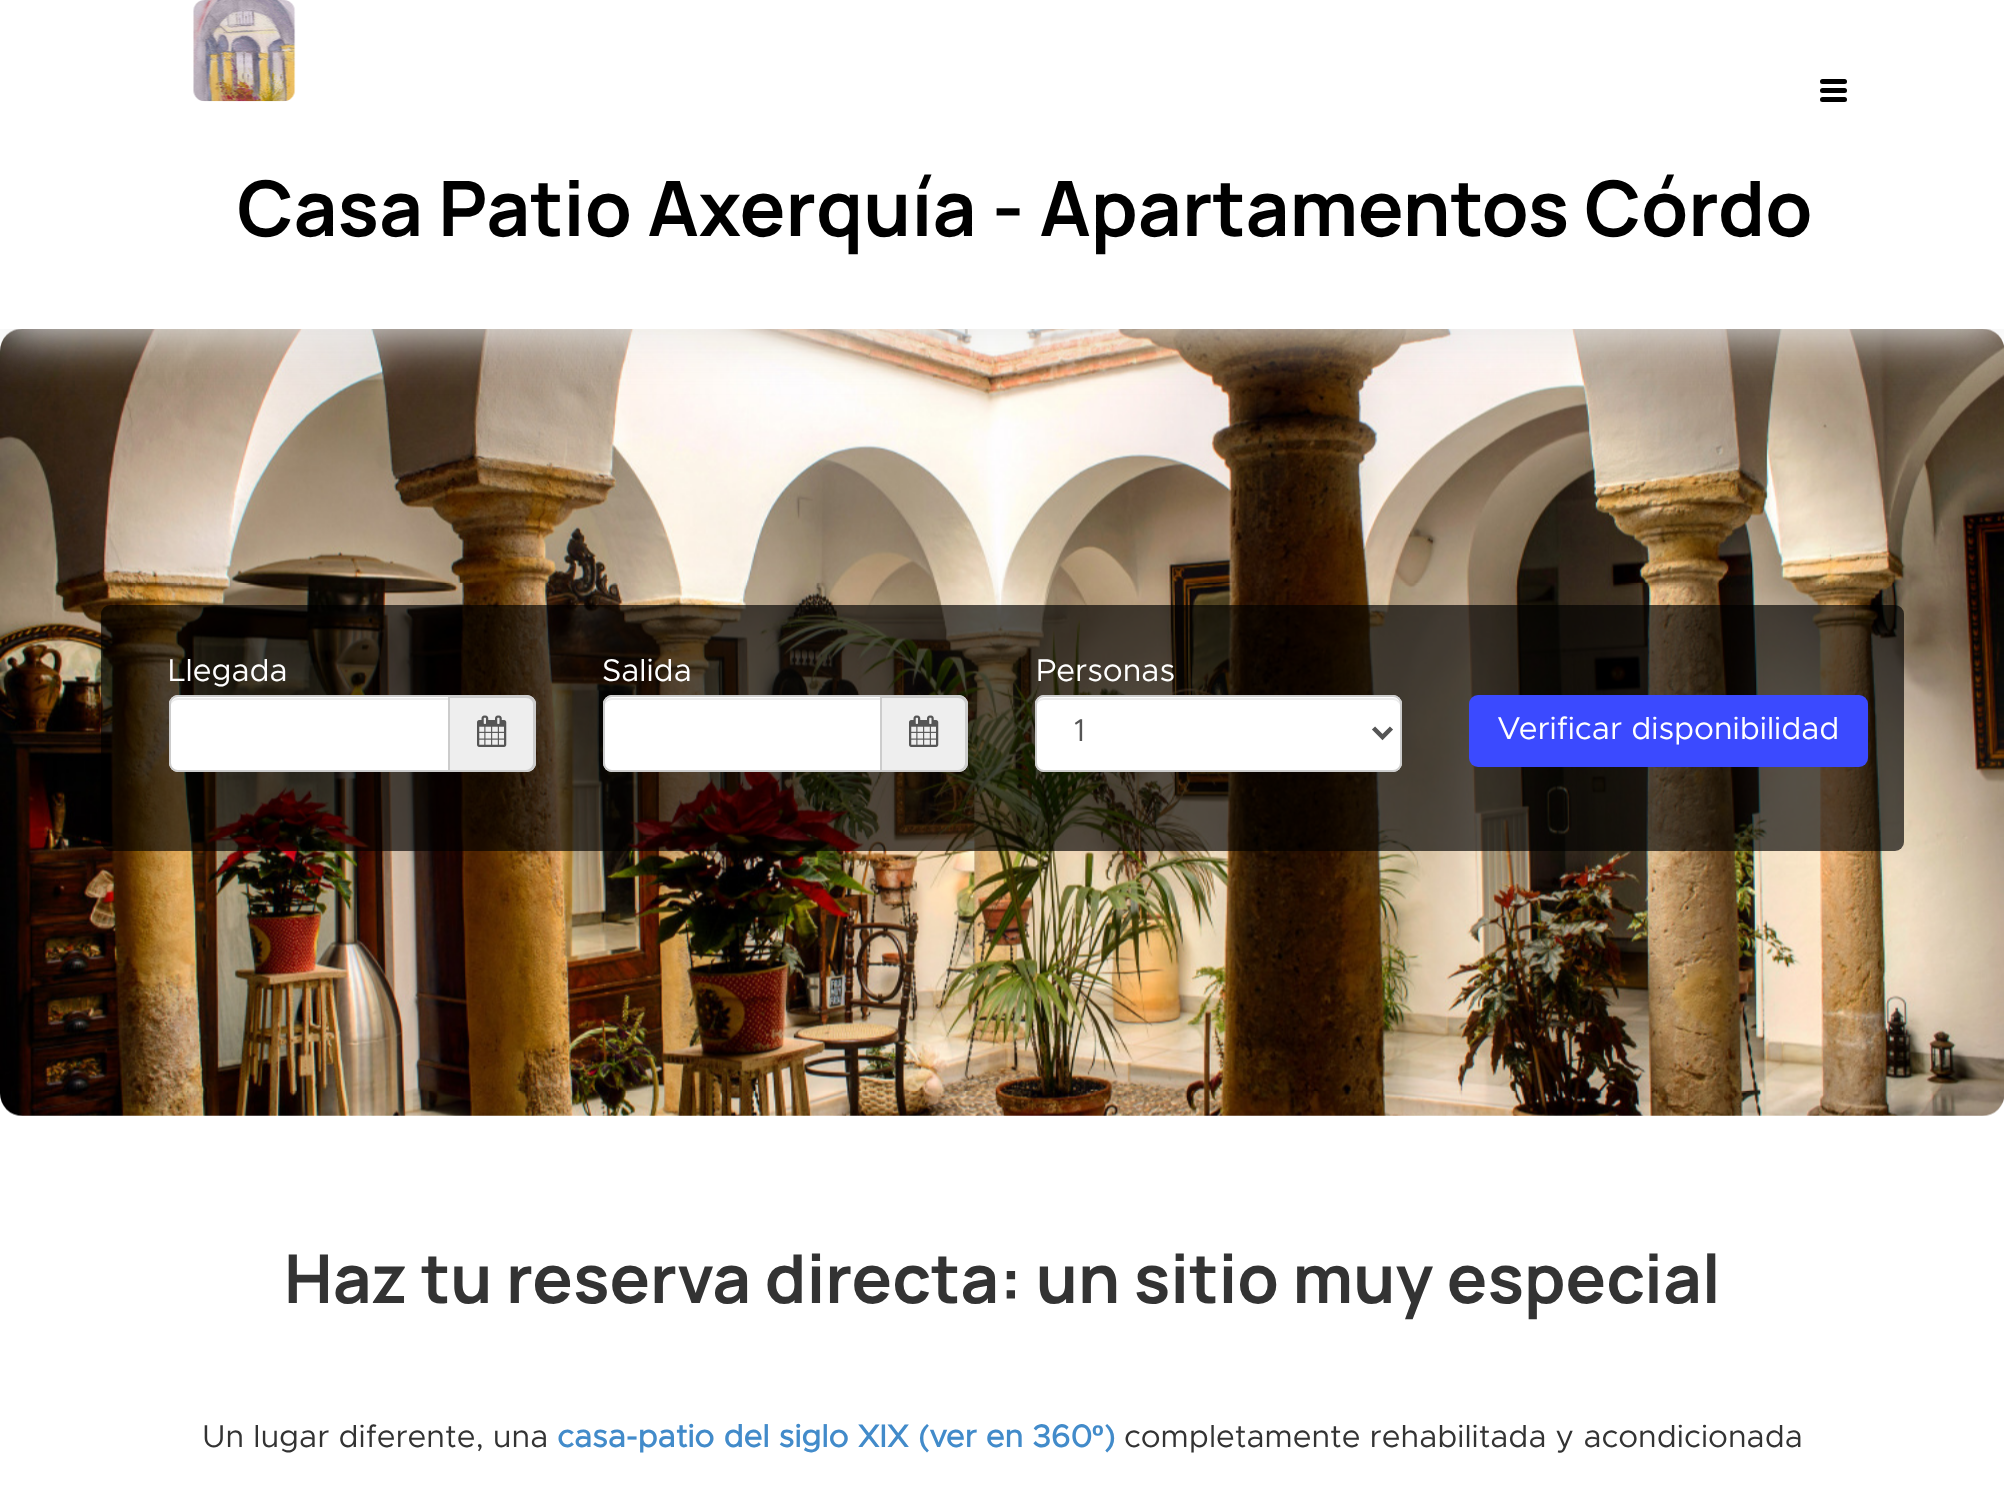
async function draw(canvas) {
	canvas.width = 2004;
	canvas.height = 1486;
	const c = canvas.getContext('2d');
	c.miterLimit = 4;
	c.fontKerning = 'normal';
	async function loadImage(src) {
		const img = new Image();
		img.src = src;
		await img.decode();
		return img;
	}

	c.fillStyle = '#fff';
	c.fillRect(0, 0, 2004, 1486);
	c.drawImage(await loadImage('img2.png'), 0, 329, 2004, 787);
	c.fillStyle = '#e9e9e9';
	c.filter = 'blur(25px)';
	c.beginPath();
	c.rect(0, 7, 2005, 328);
	c.fill();
	c.filter = 'none';
	c.fillStyle = '#fff';
	c.fillRect(0, 0, 2004, 329);
	c.fillStyle = '#000';
	c.beginPath();
	c.roundRect(1820, 79, 27, 5, 2.5);
	c.fill();
	c.beginPath();
	c.roundRect(1820, 88, 27, 5, 2.5);
	c.fill();
	c.beginPath();
	c.roundRect(1820, 97, 27, 5, 2.5);
	c.fill();
	c.drawImage(await loadImage('img1.png'), 193, 0, 103, 102);
	c.font = 'bold 76.5px Manrope';
	c.fillText('Casa Patio Axerquía - Apartamentos Córdo', 237, 236);
	c.fillStyle = '#000000a8';
	c.beginPath();
	c.roundRect(101, 605, 1803, 246, 9);
	c.fill();
	c.font = '31.5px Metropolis';
	c.fillStyle = '#fff';
	c.fillText('Llegada', 168, 681);
	c.beginPath();
	c.roundRect(169, 695, 281, 77, [9, 0, 0, 9]);
	c.fill();
	c.fillStyle = '#ececec';
	c.beginPath();
	c.moveTo(178, 700);
	c.lineTo(448, 700);
	c.lineTo(448, 698);
	c.lineTo(178, 698);
	c.bezierCurveTo(173, 698, 171, 702, 171, 706);
	c.bezierCurveTo(171, 703, 174, 700, 178, 700);
	c.closePath();
	c.fill();
	c.beginPath();
	c.roundRect(170, 696, 279, 75, [8, 0, 0, 8]);
	c.strokeStyle = '#ccc';
	c.lineWidth = 2;
	c.stroke();
	c.fillStyle = '#eee';
	c.beginPath();
	c.roundRect(450, 695, 86, 77, [0, 9, 9, 0]);
	c.fill();
	c.fillStyle = '#ccc';
	c.beginPath();
	c.moveTo(450, 695);
	c.lineTo(526, 695);
	c.bezierCurveTo(531, 695, 536, 699, 536, 704);
	c.lineTo(536, 763);
	c.bezierCurveTo(536, 768, 531, 772, 526, 772);
	c.lineTo(450, 772);
	c.closePath();
	c.moveTo(450, 698);
	c.lineTo(526, 698);
	c.bezierCurveTo(530, 698, 533, 701, 533, 704);
	c.lineTo(533, 763);
	c.bezierCurveTo(533, 766, 530, 770, 526, 770);
	c.lineTo(450, 770);
	c.closePath();
	c.fill('evenodd');
	c.drawImage(await loadImage('img3.png'), 477, 715, 30, 32);
	c.fillStyle = '#fff';
	c.fillText('Salida', 602, 681);
	c.beginPath();
	c.roundRect(603, 695, 279, 77, [9, 0, 0, 9]);
	c.fill();
	c.fillStyle = '#ececec';
	c.beginPath();
	c.moveTo(612, 700);
	c.lineTo(880, 700);
	c.lineTo(880, 698);
	c.lineTo(611, 698);
	c.bezierCurveTo(607, 699, 605, 702, 605, 706);
	c.bezierCurveTo(605, 703, 608, 700, 612, 700);
	c.closePath();
	c.fill();
	c.beginPath();
	c.roundRect(604, 696, 277, 75, [8, 0, 0, 8]);
	c.stroke();
	c.fillStyle = '#eee';
	c.beginPath();
	c.roundRect(882, 695, 86, 77, [0, 9, 9, 0]);
	c.fill();
	c.fillStyle = '#ccc';
	c.beginPath();
	c.moveTo(882, 695);
	c.lineTo(958, 695);
	c.bezierCurveTo(963, 695, 968, 699, 968, 704);
	c.lineTo(968, 763);
	c.bezierCurveTo(968, 768, 963, 772, 958, 772);
	c.lineTo(882, 772);
	c.closePath();
	c.moveTo(882, 698);
	c.lineTo(958, 698);
	c.bezierCurveTo(962, 698, 965, 701, 965, 704);
	c.lineTo(965, 763);
	c.bezierCurveTo(965, 766, 962, 770, 958, 770);
	c.lineTo(882, 770);
	c.closePath();
	c.fill('evenodd');
	c.drawImage(await loadImage('img3.png'), 909, 715, 30, 32);
	c.fillStyle = '#fff';
	c.fillText('Personas', 1036, 681);
	c.beginPath();
	c.roundRect(1035, 695, 367, 77, 9);
	c.fill();
	c.fillStyle = '#ececec';
	c.beginPath();
	c.moveTo(1044, 700);
	c.lineTo(1393, 700);
	c.bezierCurveTo(1396, 700, 1400, 703, 1400, 706);
	c.lineTo(1400, 705);
	c.bezierCurveTo(1400, 701, 1397, 698, 1393, 698);
	c.lineTo(1044, 698);
	c.bezierCurveTo(1040, 698, 1037, 701, 1037, 705);
	c.lineTo(1037, 706);
	c.bezierCurveTo(1037, 703, 1040, 700, 1044, 700);
	c.closePath();
	c.fill();
	c.beginPath();
	c.roundRect(1036, 696, 365, 75, 8);
	c.stroke();
	c.beginPath();
	c.moveTo(1373.5, 728);
	c.lineTo(1382.5, 737);
	c.lineTo(1391.5, 728);
	c.strokeStyle = '#555';
	c.lineWidth = 4.5;
	c.stroke();
	c.fillStyle = '#555';
	c.fillText('1', 1074, 741);
	c.fillStyle = '#3b4aff';
	c.beginPath();
	c.roundRect(1469, 695, 399, 72, 9);
	c.fill();
	c.fillStyle = '#fff';
	c.fillText('Verificar disponibilidad', 1497, 739);
	c.font = 'bold 67.5px Manrope';
	c.fillStyle = '#333';
	c.fillText('Haz tu reserva directa: un sitio muy especial', 284, 1303);
	c.font = '31.5px Metropolis';
	c.fillText('Un lugar diferente, una', 202, 1447);
	c.font = 'bold 31.5px Metropolis';
	c.fillStyle = '#428bca';
	c.fillText('casa-patio del siglo XIX (ver en 360', 557, 1447);
	c.font = 'bold 31.5px Liberation Sans';
	c.fillText('º', 1092, 1447);
	c.font = 'bold 31.5px Metropolis';
	c.fillText(')', 1104, 1447);
	c.font = '31.5px Metropolis';
	c.fillStyle = '#333';
	c.fillText('completamente rehabilitada y acondicionada', 1124, 1447);
}

draw(document.querySelector('canvas'));
